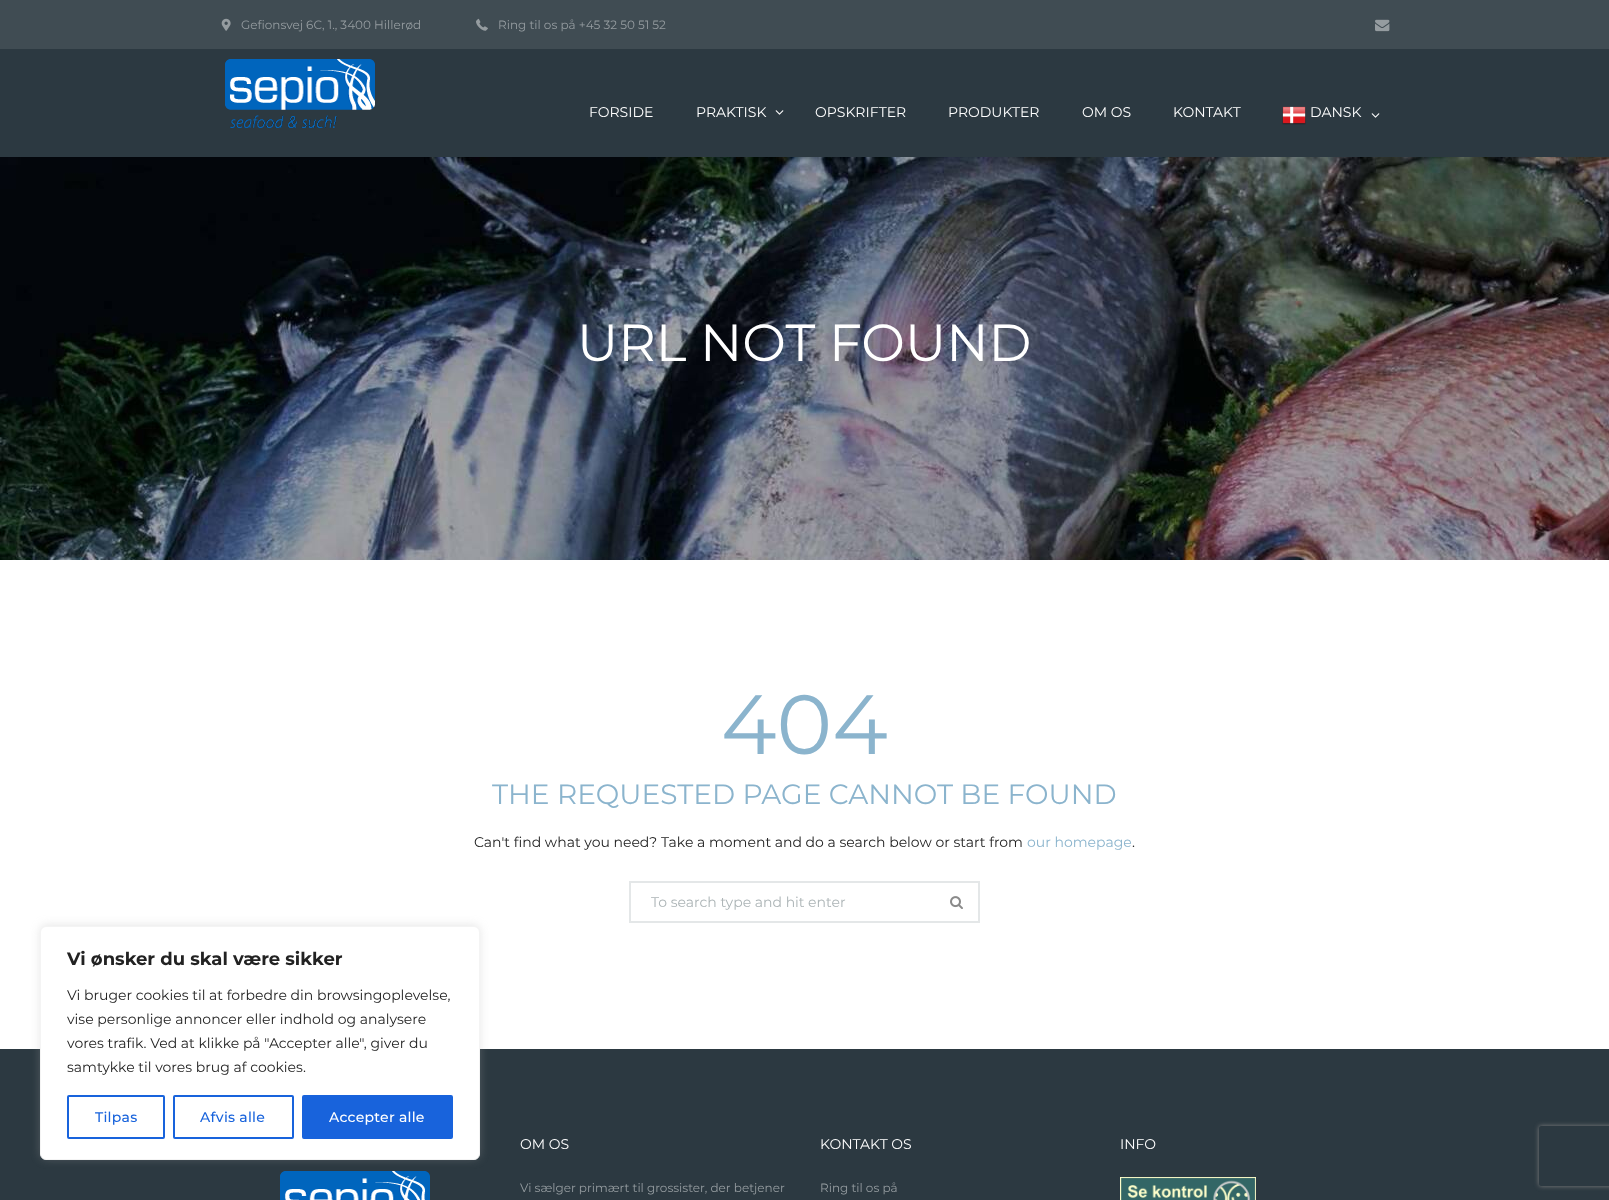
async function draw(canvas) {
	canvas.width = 1609;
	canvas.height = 1200;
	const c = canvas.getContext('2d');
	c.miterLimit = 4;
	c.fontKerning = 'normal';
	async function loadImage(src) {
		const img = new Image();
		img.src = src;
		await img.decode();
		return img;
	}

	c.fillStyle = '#fff';
	c.fillRect(0, 0, 1609, 1200);
	c.fillStyle = '#404c53';
	c.fillRect(0, 0, 1609, 49);
	c.drawImage(await loadImage('img1.png'), 221, 18, 10, 13);
	c.font = '12px Montserrat';
	c.fillStyle = '#959ca0';
	c.fillText('Gefionsvej 6C, 1., 3400 Hillerød', 241, 29);
	c.drawImage(await loadImage('img2.png'), 476, 18, 12, 13);
	c.fillText('Ring til os på +45 32 50 51 52', 498, 29);
	c.drawImage(await loadImage('img3.png'), 1375, 19, 15, 13);
	c.fillStyle = '#2c3941';
	c.fillRect(0, 49, 1609, 108);
	c.drawImage(await loadImage('img4.png'), 225, 59, 150, 69);
	c.font = '14px Montserrat';
	c.fillStyle = '#fff';
	c.fillText('FORSIDE', 589, 117);
	c.fillText('PRAKTISK', 696, 117);
	c.drawImage(await loadImage('img5.png'), 775, 110, 9, 5);
	for (const [text, x, y] of [
		['OPSKRIFTER', 815, 117],
		['PRODUKTER', 948, 117],
		['OM OS', 1082, 117],
		['KONTAKT', 1173, 117],
	]) {
		c.fillText(text, x, y);
	}
	c.drawImage(await loadImage('img6.png'), 1282, 106, 24, 19);
	c.fillText('DANSK', 1310, 117);
	c.drawImage(await loadImage('img5.png'), 1371, 113, 9, 5);
	c.drawImage(await loadImage('img7.png'), 0, 157, 1609, 403);
	c.font = '52px Montserrat';
	c.fillText('URL NOT FOUND', 577, 361);
	c.font = '84px Montserrat';
	c.fillStyle = '#8bb4cd';
	c.fillText('404', 721, 754);
	c.font = '28px Montserrat';
	c.fillText('THE REQUESTED PAGE CANNOT BE FOUND', 492, 804);
	c.font = '14px Montserrat';
	c.fillStyle = '#222';
	c.fillText('Can\'t find what you need? Take a moment and do a search below or start from', 474, 847);
	c.fillStyle = '#8bb4cd';
	c.fillText('our homepage', 1027, 847);
	c.fillStyle = '#222';
	c.fillText('.', 1132, 847);
	c.strokeStyle = '#e4e7e8';
	c.lineWidth = 2;
	c.strokeRect(630, 882, 349, 40);
	c.fillStyle = '#acb4b6';
	c.fillText('To search type and hit enter', 651, 907);
	c.drawImage(await loadImage('img8.png'), 950, 896, 13, 13);
	c.fillStyle = '#2c3941';
	c.fillRect(0, 1049, 1609, 151);
	c.fillStyle = '#fff';
	c.fillText('OM OS', 520, 1149);
	c.font = '12px Montserrat';
	c.fillStyle = '#959ca0';
	c.fillText('Vi sælger primært til grossister, der betjener', 520, 1192);
	c.font = '14px Montserrat';
	c.fillStyle = '#fff';
	c.fillText('KONTAKT OS', 820, 1149);
	c.font = '12px Montserrat';
	c.fillStyle = '#959ca0';
	c.fillText('Ring til os på', 820, 1192);
	c.font = '14px Montserrat';
	c.fillStyle = '#fff';
	c.fillText('INFO', 1120, 1149);
	c.drawImage(await loadImage('img9.png'), 1120, 1177, 136, 23);
	c.drawImage(await loadImage('img10.png'), 280, 1171, 150, 29);
	c.fillStyle = '#acabab4d';
	c.filter = 'blur(5px)';
	c.beginPath();
	c.roundRect(40, 925, 440, 234, 6);
	c.fill();
	c.filter = 'none';
	c.fillStyle = '#fff';
	c.beginPath();
	c.roundRect(40.5, 926.5, 439, 233, 5.5);
	c.fill();
	c.strokeStyle = '#f4f4f4';
	c.lineWidth = 1;
	c.stroke();
	c.font = 'bold 18px Montserrat';
	c.fillStyle = '#222';
	c.fillText('Vi ønsker du skal være sikker', 67, 965);
	c.font = '14px Montserrat';
	for (const [text, x, y] of [
		['Vi bruger cookies til at forbedre din browsingoplevelse,', 67, 1000],
		['vise personlige annoncer eller indhold og analysere', 67, 1024],
		['vores trafik. Ved at klikke på "Accepter alle", giver du', 67, 1048],
		['samtykke til vores brug af cookies.', 67, 1072],
	]) {
		c.fillText(text, x, y);
	}
	c.beginPath();
	c.roundRect(68, 1096, 96, 42, 1);
	c.strokeStyle = '#1863dc';
	c.lineWidth = 2;
	c.stroke();
	c.letterSpacing = '0.25px';
	c.font = '500 14px Montserrat';
	c.fillStyle = '#1863dc';
	c.fillText('Tilpas', 95, 1122);
	c.beginPath();
	c.roundRect(174, 1096, 119, 42, 1);
	c.stroke();
	c.fillText('Afvis alle', 200, 1122);
	c.beginPath();
	c.roundRect(303, 1096, 149, 42, 1);
	c.fill();
	c.stroke();
	c.fillStyle = '#fff';
	c.fillText('Accepter alle', 329, 1122);
	c.save();
	c.beginPath();
	c.moveTo(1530, 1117);
	c.lineTo(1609, 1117);
	c.lineTo(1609, 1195);
	c.lineTo(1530, 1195);
	c.closePath();
	c.moveTo(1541, 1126);
	c.lineTo(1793, 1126);
	c.bezierCurveTo(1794, 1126, 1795, 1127, 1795, 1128);
	c.lineTo(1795, 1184);
	c.bezierCurveTo(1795, 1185, 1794, 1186, 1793, 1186);
	c.lineTo(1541, 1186);
	c.bezierCurveTo(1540, 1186, 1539, 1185, 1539, 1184);
	c.lineTo(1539, 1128);
	c.bezierCurveTo(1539, 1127, 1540, 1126, 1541, 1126);
	c.closePath();
	c.clip('evenodd');
	c.fillStyle = '#808080';
	c.filter = 'blur(2.5px)';
	c.beginPath();
	c.roundRect(1539, 1126, 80, 60, 2);
	c.fill();
	c.filter = 'none';
	c.restore();
}

draw(document.querySelector('canvas'));
